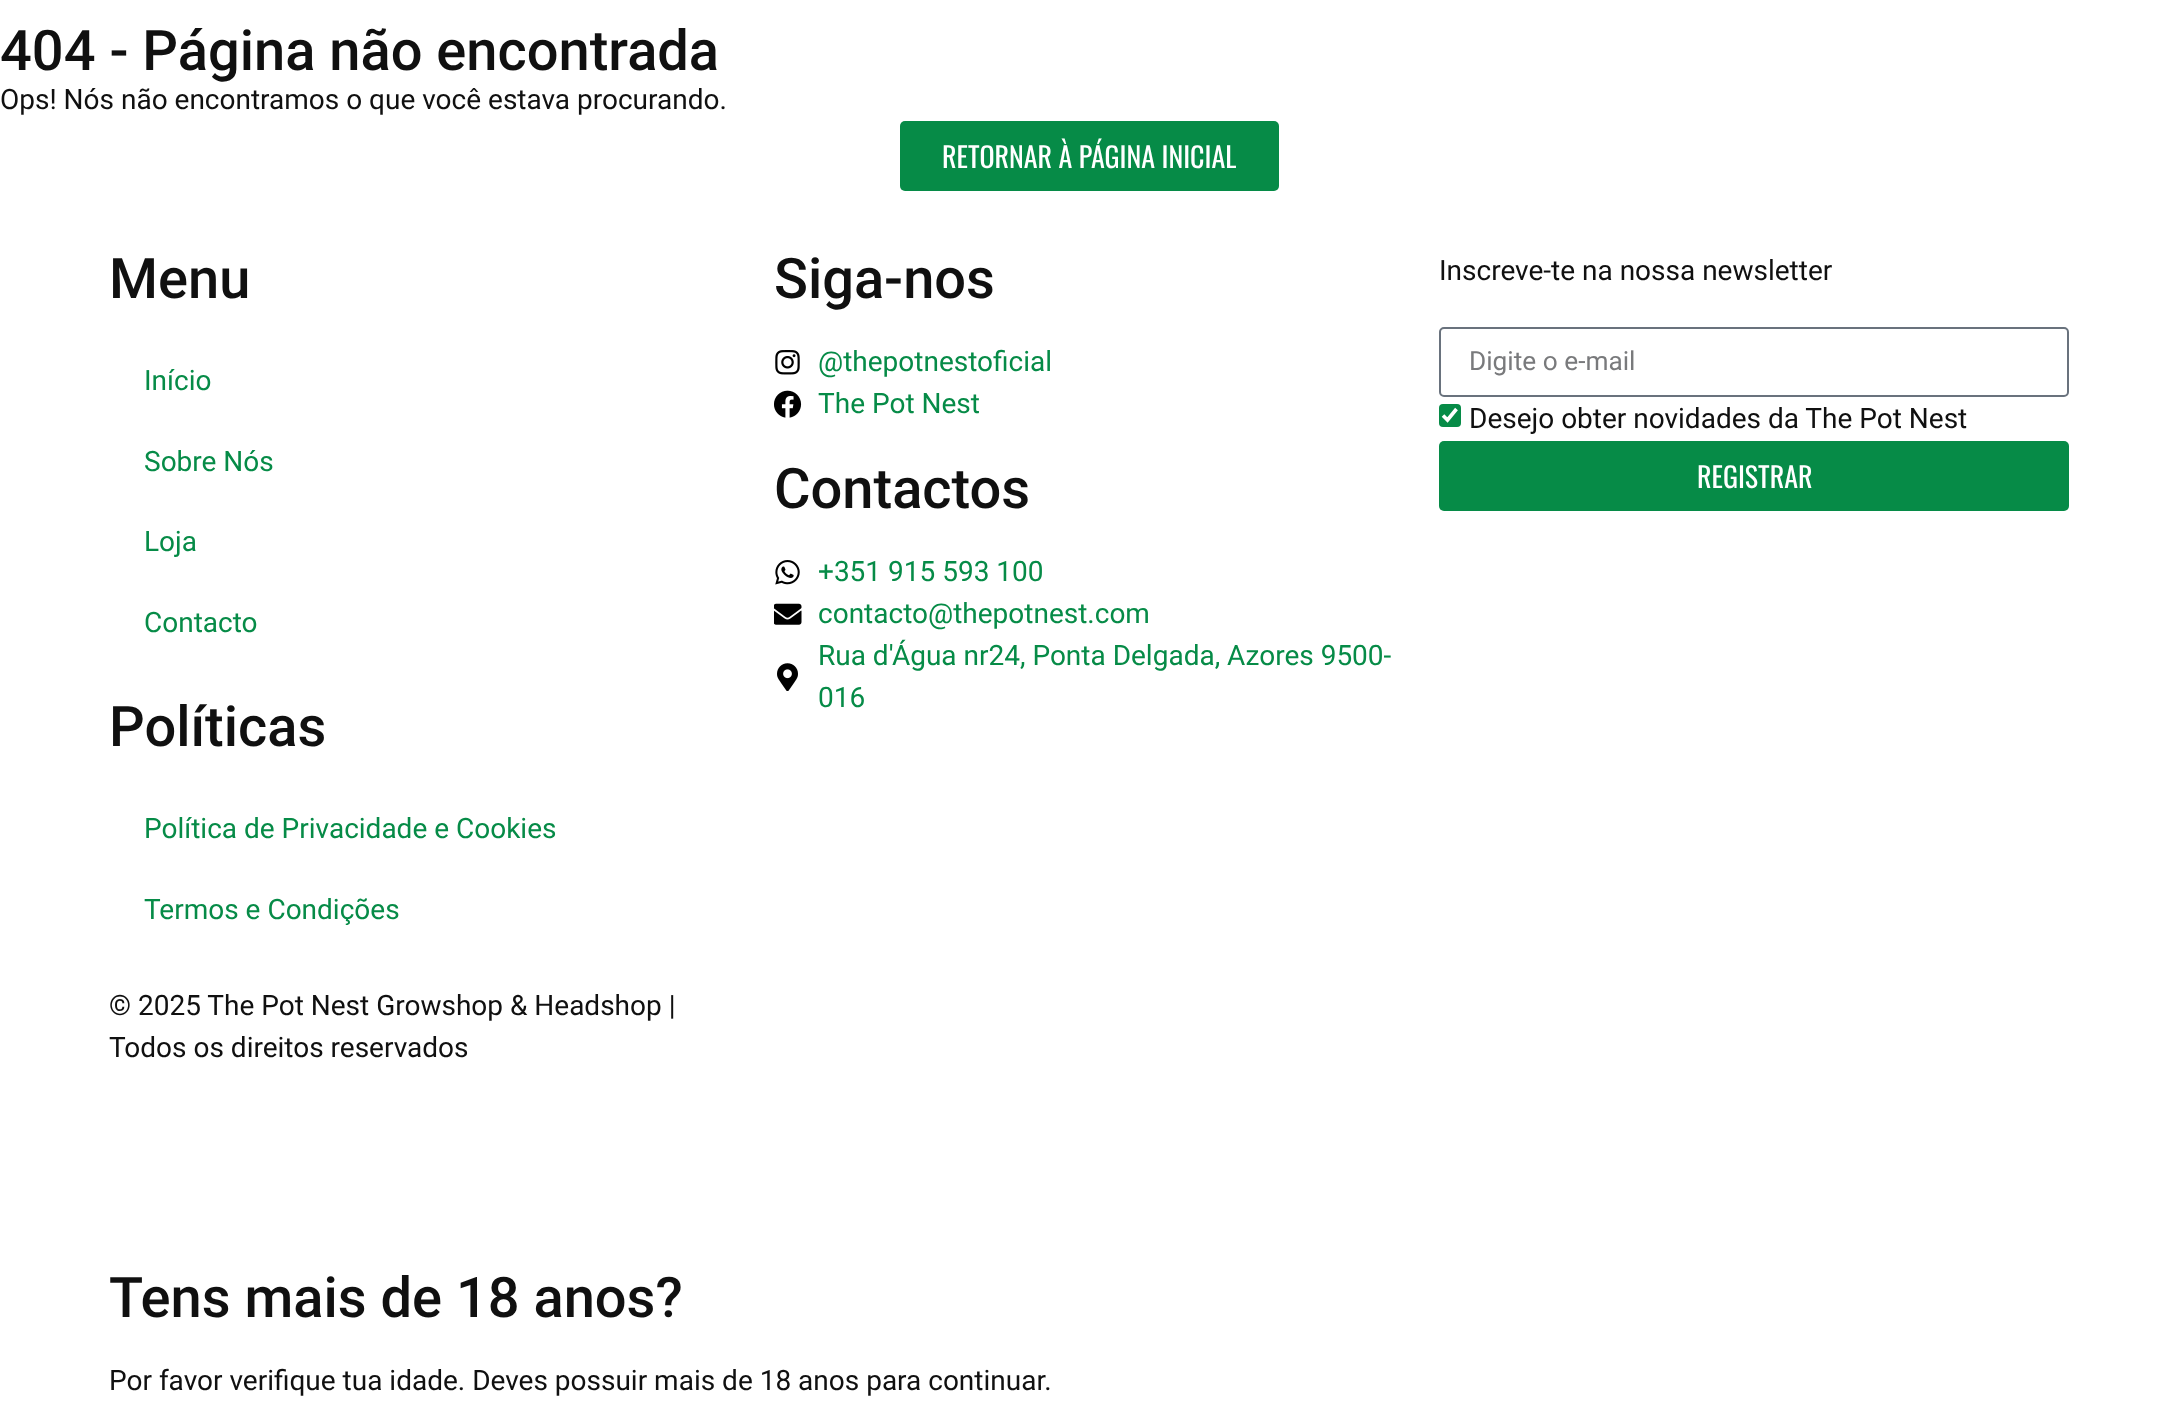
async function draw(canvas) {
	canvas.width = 2178;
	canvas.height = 1420;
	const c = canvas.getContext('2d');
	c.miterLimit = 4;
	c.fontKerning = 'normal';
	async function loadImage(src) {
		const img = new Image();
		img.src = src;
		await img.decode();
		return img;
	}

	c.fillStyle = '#fff';
	c.fillRect(0, 0, 2178, 1420);
	c.font = '500 56px Roboto';
	c.fillStyle = '#101010';
	c.fillText('404 - Página não encontrada', 0, 70);
	c.font = '28px Roboto';
	c.fillText('Ops! Nós não encontramos o que você estava procurando.', 0, 109);
	c.fillStyle = '#068b47';
	c.beginPath();
	c.roundRect(900, 121, 379, 70, 5);
	c.fill();
	c.font = '28px Oswald';
	c.fillStyle = '#fff';
	c.fillText('RETORNAR À PÁGINA INICIAL', 942, 168);
	c.font = '500 56px Roboto';
	c.fillStyle = '#101010';
	c.fillText('Menu', 109, 298);
	c.font = '28px Roboto';
	c.fillStyle = '#068b47';
	for (const [text, x, y] of [
		['Início', 144, 390],
		['Sobre Nós', 144, 471],
		['Loja', 144, 551],
		['Contacto', 144, 632],
	]) {
		c.fillText(text, x, y);
	}
	c.font = '500 56px Roboto';
	c.fillStyle = '#101010';
	c.fillText('Políticas', 109, 746);
	c.font = '28px Roboto';
	c.fillStyle = '#068b47';
	c.fillText('Política de Privacidade e Cookies', 144, 838);
	c.fillText('Termos e Condições', 144, 919);
	c.font = '500 56px Roboto';
	c.fillStyle = '#101010';
	c.fillText('Siga-nos', 774, 298);
	c.drawImage(await loadImage('img1.png'), 775, 350, 25, 25);
	c.font = '28px Roboto';
	c.fillStyle = '#068b47';
	c.fillText('@thepotnestoficial', 818, 371);
	c.drawImage(await loadImage('img2.png'), 774, 390, 28, 28);
	c.fillText('The Pot Nest', 818, 413);
	c.font = '500 56px Roboto';
	c.fillStyle = '#101010';
	c.fillText('Contactos', 774, 508);
	c.drawImage(await loadImage('img3.png'), 775, 560, 25, 25);
	c.font = '28px Roboto';
	c.fillStyle = '#068b47';
	c.fillText('+351 915 593 100', 818, 581);
	c.drawImage(await loadImage('img4.png'), 774, 603, 28, 22);
	c.fillText('contacto@thepotnest.com', 818, 623);
	c.drawImage(await loadImage('img5.png'), 777, 663, 21, 28);
	c.fillText('Rua d\'Água nr24, Ponta Delgada, Azores 9500-', 818, 665);
	c.fillText('016', 818, 707);
	c.fillStyle = '#101010';
	c.fillText('Inscreve-te na nossa newsletter', 1439, 280);
	c.beginPath();
	c.roundRect(1440, 328, 628, 68, 4);
	c.strokeStyle = '#69727d';
	c.lineWidth = 2;
	c.stroke();
	c.font = '26.25px Roboto';
	c.fillStyle = '#797a7c';
	c.fillText('Digite o e-mail', 1469, 370);
	c.fillStyle = '#068b47';
	c.beginPath();
	c.roundRect(1439, 404, 22, 23, 4);
	c.fill();
	c.beginPath();
	c.moveTo(1443, 415.5);
	c.lineTo(1447.5, 420);
	c.lineTo(1456.5, 409);
	c.strokeStyle = '#fff';
	c.lineWidth = 3.6;
	c.stroke();
	c.font = '28px Roboto';
	c.fillStyle = '#101010';
	c.fillText('Desejo obter novidades da The Pot Nest', 1469, 428);
	c.fillStyle = '#068b47';
	c.beginPath();
	c.roundRect(1439, 441, 630, 70, 5);
	c.fill();
	c.font = '28px Oswald';
	c.fillStyle = '#fff';
	c.fillText('REGISTRAR', 1697, 488);
	c.font = '28px Roboto';
	c.fillStyle = '#101010';
	c.fillText('© 2025 The Pot Nest Growshop & Headshop |', 109, 1015);
	c.fillText('Todos os direitos reservados', 109, 1057);
	c.font = '500 56px Roboto';
	c.fillText('Tens mais de 18 anos?', 109, 1317);
	c.font = '28px Roboto';
	c.fillText('Por favor verifique tua idade. Deves possuir mais de 18 anos para continuar.', 109, 1390);
}

draw(document.querySelector('canvas'));
